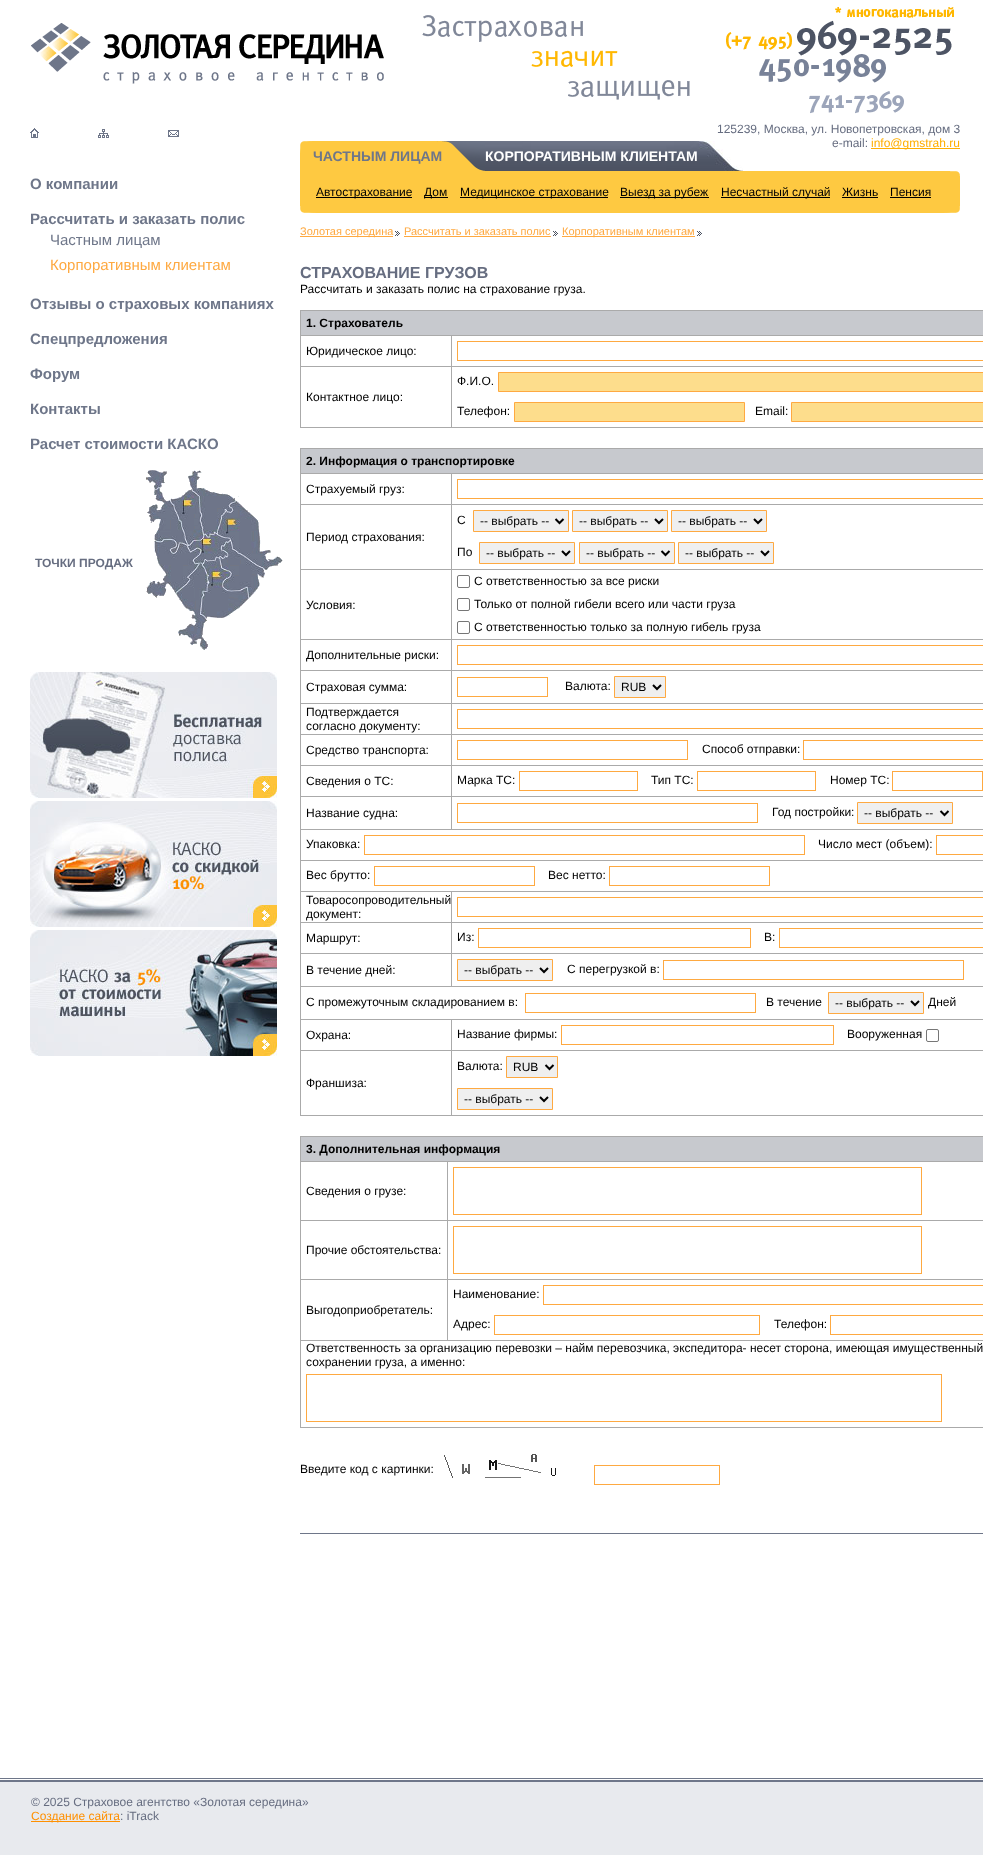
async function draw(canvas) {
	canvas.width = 983;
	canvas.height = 1855;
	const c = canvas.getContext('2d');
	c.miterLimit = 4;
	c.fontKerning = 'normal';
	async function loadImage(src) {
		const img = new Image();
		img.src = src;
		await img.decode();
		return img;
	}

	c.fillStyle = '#fff';
	c.fillRect(0, 0, 983, 1855);
	c.drawImage(await loadImage('img1.png'), 835, 7, 119, 11);
	c.drawImage(await loadImage('img2.png'), 31, 23, 353, 61);
	c.drawImage(await loadImage('img3.png'), 422, 15, 268, 85);
	c.drawImage(await loadImage('img4.png'), 726, 20, 226, 36);
	c.drawImage(await loadImage('img5.png'), 759, 54, 127, 29);
	c.drawImage(await loadImage('img6.png'), 809, 91, 95, 23);
	c.drawImage(await loadImage('img7.png'), 30, 128, 9, 10);
	c.drawImage(await loadImage('img8.png'), 98, 129, 11, 9);
	c.drawImage(await loadImage('img9.png'), 168, 130, 11, 7);
	c.font = '12px Liberation Sans';
	c.fillStyle = '#666d80';
	c.fillText('125239, Москва, ул. Новопетровская, дом 3', 717, 133);
	c.fillText('e-mail:', 832, 147);
	c.fillStyle = '#ffae00';
	c.fillRect(871, 148, 89, 1);
	c.fillText('info@gmstrah.ru', 871, 147);
	c.font = 'bold 15px Liberation Sans';
	c.fillStyle = '#6e7689';
	c.fillText('О компании', 30, 189);
	c.fillText('Рассчитать и заказать полис', 30, 224);
	c.font = '15px Liberation Sans';
	c.fillText('Частным лицам', 50, 245);
	c.fillStyle = '#fea941';
	c.fillText('Корпоративным клиентам', 50, 270);
	c.font = 'bold 15px Liberation Sans';
	c.fillStyle = '#6e7689';
	for (const [text, x, y] of [
		['Отзывы о страховых компаниях', 30, 309],
		['Спецпредложения', 30, 344],
		['Форум', 30, 379],
		['Контакты', 30, 414],
		['Расчет стоимости КАСКО', 30, 449],
	]) {
		c.fillText(text, x, y);
	}
	c.font = 'bold 12px Liberation Sans';
	c.fillStyle = '#666d80';
	c.fillText('ТОЧКИ ПРОДАЖ', 35, 567);
	c.drawImage(await loadImage('img10.png'), 146, 470, 137, 180);
	c.drawImage(await loadImage('img11.png'), 30, 672, 247, 126);
	c.drawImage(await loadImage('img12.png'), 30, 801, 247, 126);
	c.drawImage(await loadImage('img13.png'), 30, 930, 247, 126);
	c.fillStyle = '#fec941';
	c.fillRect(300, 141, 142, 30);
	c.drawImage(await loadImage('img14.png'), 300, 141, 138, 12);
	c.font = 'bold 14px Liberation Sans';
	c.fillStyle = '#6e7689';
	c.fillText('ЧАСТНЫМ ЛИЦАМ', 313, 161);
	c.drawImage(await loadImage('img15.png'), 442, 141, 43, 30);
	c.drawImage(await loadImage('img16.png'), 485, 141, 258, 30);
	c.fillStyle = '#fff';
	c.fillText('КОРПОРАТИВНЫМ КЛИЕНТАМ', 485, 161);
	c.fillStyle = '#fec941';
	c.fillRect(300, 171, 660, 35);
	c.drawImage(await loadImage('img17.png'), 950, 171, 10, 5);
	c.drawImage(await loadImage('img18.png'), 300, 206, 660, 7);
	c.fillStyle = '#000';
	c.fillRect(316, 197, 96, 1);
	c.font = '12px Liberation Sans';
	c.fillText('Автострахование', 316, 196);
	c.fillRect(424, 197, 24, 1);
	c.fillText('Дом', 424, 196);
	c.fillRect(460, 197, 148, 1);
	c.fillText('Медицинское страхование', 460, 196);
	c.fillRect(620, 197, 89, 1);
	c.fillText('Выезд за рубеж', 620, 196);
	c.fillRect(721, 197, 109, 1);
	c.fillText('Несчастный случай', 721, 196);
	c.fillText('Жизнь', 842, 196);
	c.fillRect(842, 197, 36, 1);
	c.fillText('Пенсия', 890, 196);
	c.fillRect(890, 197, 41, 1);
	c.drawImage(await loadImage('img19.png'), 395, 231, 5, 5);
	c.fillStyle = '#fea941';
	c.fillRect(300, 236, 93, 1);
	c.font = '11px Liberation Sans';
	c.fillText('Золотая середина', 300, 235);
	c.drawImage(await loadImage('img19.png'), 553, 231, 5, 5);
	c.fillText('Рассчитать и заказать полис', 404, 235);
	c.fillRect(404, 236, 147, 1);
	c.drawImage(await loadImage('img19.png'), 697, 231, 5, 5);
	c.fillRect(562, 236, 133, 1);
	c.fillText('Корпоративным клиентам', 562, 235);
	c.font = 'bold 16px Liberation Sans';
	c.fillStyle = '#666d80';
	c.fillText('СТРАХОВАНИЕ ГРУЗОВ', 300, 278);
	c.font = '12px Liberation Sans';
	c.fillStyle = '#000';
	c.fillText('Рассчитать и заказать полис на страхование груза.', 300, 293);
	for (const [x, y, w, h, color] of [
		[300, 310, 683, 1, '#aaa'],
		[300, 427, 683, 1, '#aaa'],
		[300, 310, 1, 118, '#aaa'],
		[301, 311, 682, 24, '#c7c9ce'],
	]) {
		c.fillStyle = color;
		c.fillRect(x, y, w, h);
	}
	c.font = 'bold 12px Liberation Sans';
	c.fillStyle = '#000';
	c.fillText('1. Страхователь', 306, 327);
	for (const [x, y, w, h, color] of [
		[451, 335, 532, 1, '#aaa'],
		[451, 366, 532, 1, '#aaa'],
		[451, 366, 1, 62, '#aaa'],
		[300, 366, 152, 1, '#aaa'],
		[451, 335, 1, 32, '#aaa'],
		[300, 335, 152, 1, '#aaa'],
	]) {
		c.fillStyle = color;
		c.fillRect(x, y, w, h);
	}
	c.font = '12px Liberation Sans';
	c.fillStyle = '#000';
	c.fillText('Юридическое лицо:', 306, 355);
	c.strokeStyle = '#fea941';
	c.strokeRect(457.5, 341.5, 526, 19);
	c.fillText('Контактное лицо:', 306, 401);
	c.fillText('Ф.И.О.', 457, 385);
	c.fillStyle = '#fddd8c';
	c.beginPath();
	c.rect(498.5, 372.5, 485, 19);
	c.fill();
	c.stroke();
	c.fillStyle = '#000';
	c.fillText('Телефон:', 457, 415);
	c.fillStyle = '#fddd8c';
	c.beginPath();
	c.rect(514.5, 402.5, 230, 19);
	c.fill();
	c.stroke();
	c.fillStyle = '#000';
	c.fillText('Email:', 755, 415);
	c.fillStyle = '#fddd8c';
	c.beginPath();
	c.rect(791.5, 402.5, 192, 19);
	c.fill();
	c.stroke();
	for (const [x, y, w, h, color] of [
		[300, 448, 683, 1, '#aaa'],
		[300, 1115, 683, 1, '#aaa'],
		[300, 448, 1, 668, '#aaa'],
		[301, 449, 682, 24, '#c7c9ce'],
	]) {
		c.fillStyle = color;
		c.fillRect(x, y, w, h);
	}
	c.font = 'bold 12px Liberation Sans';
	c.fillStyle = '#000';
	c.fillText('2. Информация о транспортировке', 306, 465);
	for (const [x, y, w, h, color] of [
		[451, 473, 532, 1, '#aaa'],
		[451, 504, 532, 1, '#aaa'],
		[451, 569, 532, 1, '#aaa'],
		[451, 639, 532, 1, '#aaa'],
		[451, 670, 532, 1, '#aaa'],
		[451, 703, 532, 1, '#aaa'],
		[451, 734, 532, 1, '#aaa'],
		[451, 765, 532, 1, '#aaa'],
		[451, 796, 532, 1, '#aaa'],
		[300, 829, 683, 1, '#aaa'],
		[451, 796, 1, 34, '#aaa'],
		[300, 796, 152, 1, '#aaa'],
		[451, 765, 1, 32, '#aaa'],
		[300, 765, 152, 1, '#aaa'],
		[451, 734, 1, 32, '#aaa'],
		[300, 734, 152, 1, '#aaa'],
		[451, 703, 1, 32, '#aaa'],
		[300, 703, 152, 1, '#aaa'],
		[451, 670, 1, 34, '#aaa'],
		[300, 670, 152, 1, '#aaa'],
		[451, 639, 1, 32, '#aaa'],
		[300, 639, 152, 1, '#aaa'],
		[451, 569, 1, 71, '#aaa'],
		[300, 569, 152, 1, '#aaa'],
		[451, 504, 1, 66, '#aaa'],
		[300, 504, 152, 1, '#aaa'],
		[451, 473, 1, 32, '#aaa'],
		[300, 473, 152, 1, '#aaa'],
	]) {
		c.fillStyle = color;
		c.fillRect(x, y, w, h);
	}
	c.font = '12px Liberation Sans';
	c.fillStyle = '#000';
	c.fillText('Страхуемый груз:', 306, 493);
	c.strokeRect(457.5, 479.5, 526, 19);
	c.fillText('Период страхования:', 306, 541);
	c.fillText('С', 457, 524);
	c.fillStyle = '#efefef';
	c.beginPath();
	c.rect(473.5, 510.5, 95, 21);
	c.fill();
	c.stroke();
	c.beginPath();
	c.moveTo(555.5, 519);
	c.lineTo(559.5, 523);
	c.lineTo(563.5, 519);
	c.strokeStyle = '#000';
	c.lineWidth = 2;
	c.stroke();
	c.fillStyle = '#000';
	c.fillText('-- выбрать --', 480, 525);
	c.fillStyle = '#efefef';
	c.beginPath();
	c.rect(572.5, 510.5, 95, 21);
	c.fill();
	c.strokeStyle = '#fea941';
	c.lineWidth = 1;
	c.stroke();
	c.beginPath();
	c.moveTo(655, 519);
	c.lineTo(659, 523);
	c.lineTo(663, 519);
	c.strokeStyle = '#000';
	c.lineWidth = 2;
	c.stroke();
	c.fillStyle = '#000';
	c.fillText('-- выбрать --', 579, 525);
	c.fillStyle = '#efefef';
	c.beginPath();
	c.rect(671.5, 510.5, 95, 21);
	c.fill();
	c.strokeStyle = '#fea941';
	c.lineWidth = 1;
	c.stroke();
	c.beginPath();
	c.moveTo(754, 519);
	c.lineTo(758, 523);
	c.lineTo(762, 519);
	c.strokeStyle = '#000';
	c.lineWidth = 2;
	c.stroke();
	c.fillStyle = '#000';
	c.fillText('-- выбрать --', 678, 525);
	c.fillText('По', 457, 556);
	c.fillStyle = '#efefef';
	c.beginPath();
	c.rect(479.5, 542.5, 95, 21);
	c.fill();
	c.strokeStyle = '#fea941';
	c.lineWidth = 1;
	c.stroke();
	c.beginPath();
	c.moveTo(562, 551);
	c.lineTo(566, 555);
	c.lineTo(570, 551);
	c.strokeStyle = '#000';
	c.lineWidth = 2;
	c.stroke();
	c.fillStyle = '#000';
	c.fillText('-- выбрать --', 486, 557);
	c.fillStyle = '#efefef';
	c.beginPath();
	c.rect(579.5, 542.5, 95, 21);
	c.fill();
	c.strokeStyle = '#fea941';
	c.lineWidth = 1;
	c.stroke();
	c.beginPath();
	c.moveTo(661.5, 551);
	c.lineTo(665.5, 555);
	c.lineTo(669.5, 551);
	c.strokeStyle = '#000';
	c.lineWidth = 2;
	c.stroke();
	c.fillStyle = '#000';
	c.fillText('-- выбрать --', 586, 557);
	c.fillStyle = '#efefef';
	c.beginPath();
	c.rect(678.5, 542.5, 95, 21);
	c.fill();
	c.strokeStyle = '#fea941';
	c.lineWidth = 1;
	c.stroke();
	c.beginPath();
	c.moveTo(761, 551);
	c.lineTo(765, 555);
	c.lineTo(769, 551);
	c.strokeStyle = '#000';
	c.lineWidth = 2;
	c.stroke();
	c.fillStyle = '#000';
	c.fillText('-- выбрать --', 685, 557);
	c.fillText('Условия:', 306, 609);
	c.beginPath();
	c.roundRect(457.5, 575.5, 12, 12, 1.5);
	c.strokeStyle = '#767676';
	c.lineWidth = 1;
	c.stroke();
	c.fillText('C ответственностью за все риски', 474, 585);
	c.beginPath();
	c.roundRect(457.5, 598.5, 12, 12, 1.5);
	c.stroke();
	c.fillText('Только от полной гибели всего или части груза', 474, 608);
	c.beginPath();
	c.roundRect(457.5, 621.5, 12, 12, 1.5);
	c.stroke();
	c.fillText('C ответственностью только за полную гибель груза', 474, 631);
	c.fillText('Дополнительные риски:', 306, 659);
	c.strokeStyle = '#fea941';
	c.strokeRect(457.5, 645.5, 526, 19);
	c.fillText('Страховая сумма:', 306, 691);
	c.strokeRect(457.5, 677.5, 90, 19);
	c.fillText('Валюта:', 565, 690);
	c.fillStyle = '#efefef';
	c.beginPath();
	c.rect(614.5, 676.5, 51, 21);
	c.fill();
	c.stroke();
	c.beginPath();
	c.moveTo(653, 685);
	c.lineTo(657, 689);
	c.lineTo(661, 685);
	c.strokeStyle = '#000';
	c.lineWidth = 2;
	c.stroke();
	c.fillStyle = '#000';
	for (const [text, x, y] of [
		['RUB', 621, 691],
		['Подтверждается', 306, 716],
		['согласно документу:', 306, 730],
	]) {
		c.fillText(text, x, y);
	}
	c.strokeStyle = '#fea941';
	c.lineWidth = 1;
	c.strokeRect(457.5, 709.5, 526, 19);
	c.fillText('Средство транспорта:', 306, 754);
	c.strokeRect(457.5, 740.5, 230, 19);
	c.fillText('Способ отправки:', 702, 753);
	c.strokeRect(803.5, 740.5, 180, 19);
	c.fillText('Сведения о ТС:', 306, 785);
	c.fillText('Марка ТС:', 457, 784);
	c.strokeRect(519.5, 771.5, 118, 19);
	c.fillText('Тип ТС:', 651, 784);
	c.strokeRect(697.5, 771.5, 118, 19);
	c.fillText('Номер ТС:', 830, 784);
	c.strokeRect(892.5, 771.5, 90, 19);
	c.fillText('Название судна:', 306, 817);
	c.strokeRect(457.5, 803.5, 300, 19);
	c.fillText('Год постройки:', 772, 816);
	c.fillStyle = '#efefef';
	c.beginPath();
	c.rect(857.5, 802.5, 95, 21);
	c.fill();
	c.stroke();
	c.beginPath();
	c.moveTo(940.5, 811);
	c.lineTo(944.5, 815);
	c.lineTo(948.5, 811);
	c.strokeStyle = '#000';
	c.lineWidth = 2;
	c.stroke();
	c.fillStyle = '#000';
	c.fillText('-- выбрать --', 864, 817);
	c.fillText('Упаковка:', 306, 848);
	c.strokeStyle = '#fea941';
	c.lineWidth = 1;
	c.strokeRect(364.5, 835.5, 440, 19);
	c.fillText('Число мест (объем):', 818, 848);
	c.strokeRect(936.5, 835.5, 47, 19);
	c.fillStyle = '#aaa';
	c.fillRect(300, 860, 683, 1);
	c.fillStyle = '#000';
	c.fillText('Вес брутто:', 306, 879);
	c.strokeRect(374.5, 866.5, 160, 19);
	c.fillText('Вес нетто:', 548, 879);
	c.strokeRect(609.5, 866.5, 160, 19);
	for (const [x, y, w, h, color] of [
		[451, 891, 532, 1, '#aaa'],
		[451, 922, 532, 1, '#aaa'],
		[451, 953, 532, 1, '#aaa'],
		[300, 986, 683, 1, '#aaa'],
		[451, 953, 1, 34, '#aaa'],
		[300, 953, 152, 1, '#aaa'],
		[451, 922, 1, 32, '#aaa'],
		[300, 922, 152, 1, '#aaa'],
		[451, 891, 1, 32, '#aaa'],
		[300, 891, 152, 1, '#aaa'],
	]) {
		c.fillStyle = color;
		c.fillRect(x, y, w, h);
	}
	c.fillStyle = '#000';
	c.fillText('Товаросопроводительный', 306, 904);
	c.fillText('документ:', 306, 918);
	c.strokeRect(457.5, 897.5, 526, 19);
	c.fillText('Маршрут:', 306, 942);
	c.fillText('Из:', 457, 941);
	c.strokeRect(478.5, 928.5, 272, 19);
	c.fillText('В:', 764, 941);
	c.strokeRect(779.5, 928.5, 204, 19);
	c.fillText('В течение дней:', 306, 974);
	c.fillStyle = '#efefef';
	c.beginPath();
	c.rect(457.5, 959.5, 95, 21);
	c.fill();
	c.stroke();
	c.beginPath();
	c.moveTo(540, 968);
	c.lineTo(544, 972);
	c.lineTo(548, 968);
	c.strokeStyle = '#000';
	c.lineWidth = 2;
	c.stroke();
	c.fillStyle = '#000';
	c.fillText('-- выбрать --', 464, 974);
	c.fillText('С перегрузкой в:', 567, 973);
	c.strokeStyle = '#fea941';
	c.lineWidth = 1;
	c.strokeRect(663.5, 960.5, 300, 19);
	c.fillText('С промежуточным складированием в:', 306, 1006);
	c.strokeRect(525.5, 993.5, 230, 19);
	c.fillText('В течение', 766, 1006);
	c.fillStyle = '#efefef';
	c.beginPath();
	c.rect(828.5, 992.5, 95, 21);
	c.fill();
	c.stroke();
	c.beginPath();
	c.moveTo(911, 1001);
	c.lineTo(915, 1005);
	c.lineTo(919, 1001);
	c.strokeStyle = '#000';
	c.lineWidth = 2;
	c.stroke();
	c.fillStyle = '#000';
	c.fillText('-- выбрать --', 835, 1007);
	c.fillText('Дней', 928, 1006);
	for (const [x, y, w, h, color] of [
		[451, 1019, 532, 1, '#aaa'],
		[451, 1050, 532, 1, '#aaa'],
		[451, 1050, 1, 66, '#aaa'],
		[300, 1050, 152, 1, '#aaa'],
		[451, 1019, 1, 32, '#aaa'],
		[300, 1019, 152, 1, '#aaa'],
	]) {
		c.fillStyle = color;
		c.fillRect(x, y, w, h);
	}
	c.fillStyle = '#000';
	c.fillText('Охрана:', 306, 1039);
	c.fillText('Название фирмы:', 457, 1038);
	c.strokeStyle = '#fea941';
	c.lineWidth = 1;
	c.strokeRect(561.5, 1025.5, 272, 19);
	c.fillText('Вооруженная', 847, 1038);
	c.beginPath();
	c.roundRect(926.5, 1029.5, 12, 12, 1.5);
	c.strokeStyle = '#767676';
	c.stroke();
	c.fillText('Франшиза:', 306, 1087);
	c.fillText('Валюта:', 457, 1070);
	c.fillStyle = '#efefef';
	c.beginPath();
	c.rect(506.5, 1056.5, 51, 21);
	c.fill();
	c.strokeStyle = '#fea941';
	c.stroke();
	c.beginPath();
	c.moveTo(545.5, 1065);
	c.lineTo(549.5, 1069);
	c.lineTo(553.5, 1065);
	c.strokeStyle = '#000';
	c.lineWidth = 2;
	c.stroke();
	c.fillStyle = '#000';
	c.fillText('RUB', 513, 1071);
	c.fillStyle = '#efefef';
	c.beginPath();
	c.rect(457.5, 1088.5, 95, 21);
	c.fill();
	c.strokeStyle = '#fea941';
	c.lineWidth = 1;
	c.stroke();
	c.beginPath();
	c.moveTo(540, 1097);
	c.lineTo(544, 1101);
	c.lineTo(548, 1097);
	c.strokeStyle = '#000';
	c.lineWidth = 2;
	c.stroke();
	c.fillStyle = '#000';
	c.fillText('-- выбрать --', 464, 1103);
	for (const [x, y, w, h, color] of [
		[300, 1136, 683, 1, '#aaa'],
		[300, 1427, 683, 1, '#aaa'],
		[300, 1136, 1, 292, '#aaa'],
		[301, 1137, 682, 24, '#c7c9ce'],
	]) {
		c.fillStyle = color;
		c.fillRect(x, y, w, h);
	}
	c.font = 'bold 12px Liberation Sans';
	c.fillStyle = '#000';
	c.fillText('3. Дополнительная информация', 306, 1153);
	for (const [x, y, w, h, color] of [
		[447, 1161, 536, 1, '#aaa'],
		[447, 1220, 536, 1, '#aaa'],
		[447, 1279, 536, 1, '#aaa'],
		[300, 1340, 683, 1, '#aaa'],
		[447, 1279, 1, 62, '#aaa'],
		[300, 1279, 148, 1, '#aaa'],
		[447, 1220, 1, 60, '#aaa'],
		[300, 1220, 148, 1, '#aaa'],
		[447, 1161, 1, 60, '#aaa'],
		[300, 1161, 148, 1, '#aaa'],
	]) {
		c.fillStyle = color;
		c.fillRect(x, y, w, h);
	}
	c.font = '12px Liberation Sans';
	c.fillStyle = '#000';
	c.fillText('Сведения о грузе:', 306, 1195);
	c.strokeStyle = '#fea941';
	c.lineWidth = 1;
	c.strokeRect(453.5, 1167.5, 468, 47);
	c.fillText('Прочие обстоятельства:', 306, 1254);
	c.strokeRect(453.5, 1226.5, 468, 47);
	c.fillText('Выгодоприобретатель:', 306, 1314);
	c.fillText('Наименование:', 453, 1298);
	c.strokeRect(543.5, 1285.5, 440, 19);
	c.fillText('Адрес:', 453, 1328);
	c.strokeRect(494.5, 1315.5, 265, 19);
	c.fillText('Телефон:', 774, 1328);
	c.strokeRect(830.5, 1315.5, 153, 19);
	c.fillText('Ответственность за организацию перевозки – найм перевозчика, экспедитора- несет сторона, имеющая имущественный', 306, 1352);
	c.fillText('сохранении груза, а именно:', 306, 1366);
	c.strokeRect(306.5, 1374.5, 635, 47);
	c.fillText('Введите код с картинки:', 300, 1473);
	c.drawImage(await loadImage('img20.png'), 444, 1454, 112, 24);
	c.strokeRect(594.5, 1465.5, 125, 19);
	c.fillStyle = '#6e7689';
	c.fillRect(300, 1533, 683, 1);
	c.fillStyle = '#e8eaee';
	c.fillRect(0, 1782, 983, 73);
	c.drawImage(await loadImage('img21.png'), 0, 1778, 983, 4);
	c.fillStyle = '#666d80';
	c.fillText('© 2025 Страховое агентство «Золотая середина»', 31, 1806);
	c.fillStyle = '#ff9000';
	c.fillRect(31, 1821, 89, 1);
	c.fillText('Создание сайта', 31, 1820);
	c.fillStyle = '#666d80';
	c.fillText(': iTrack', 120, 1820);
}

draw(document.querySelector('canvas'));
